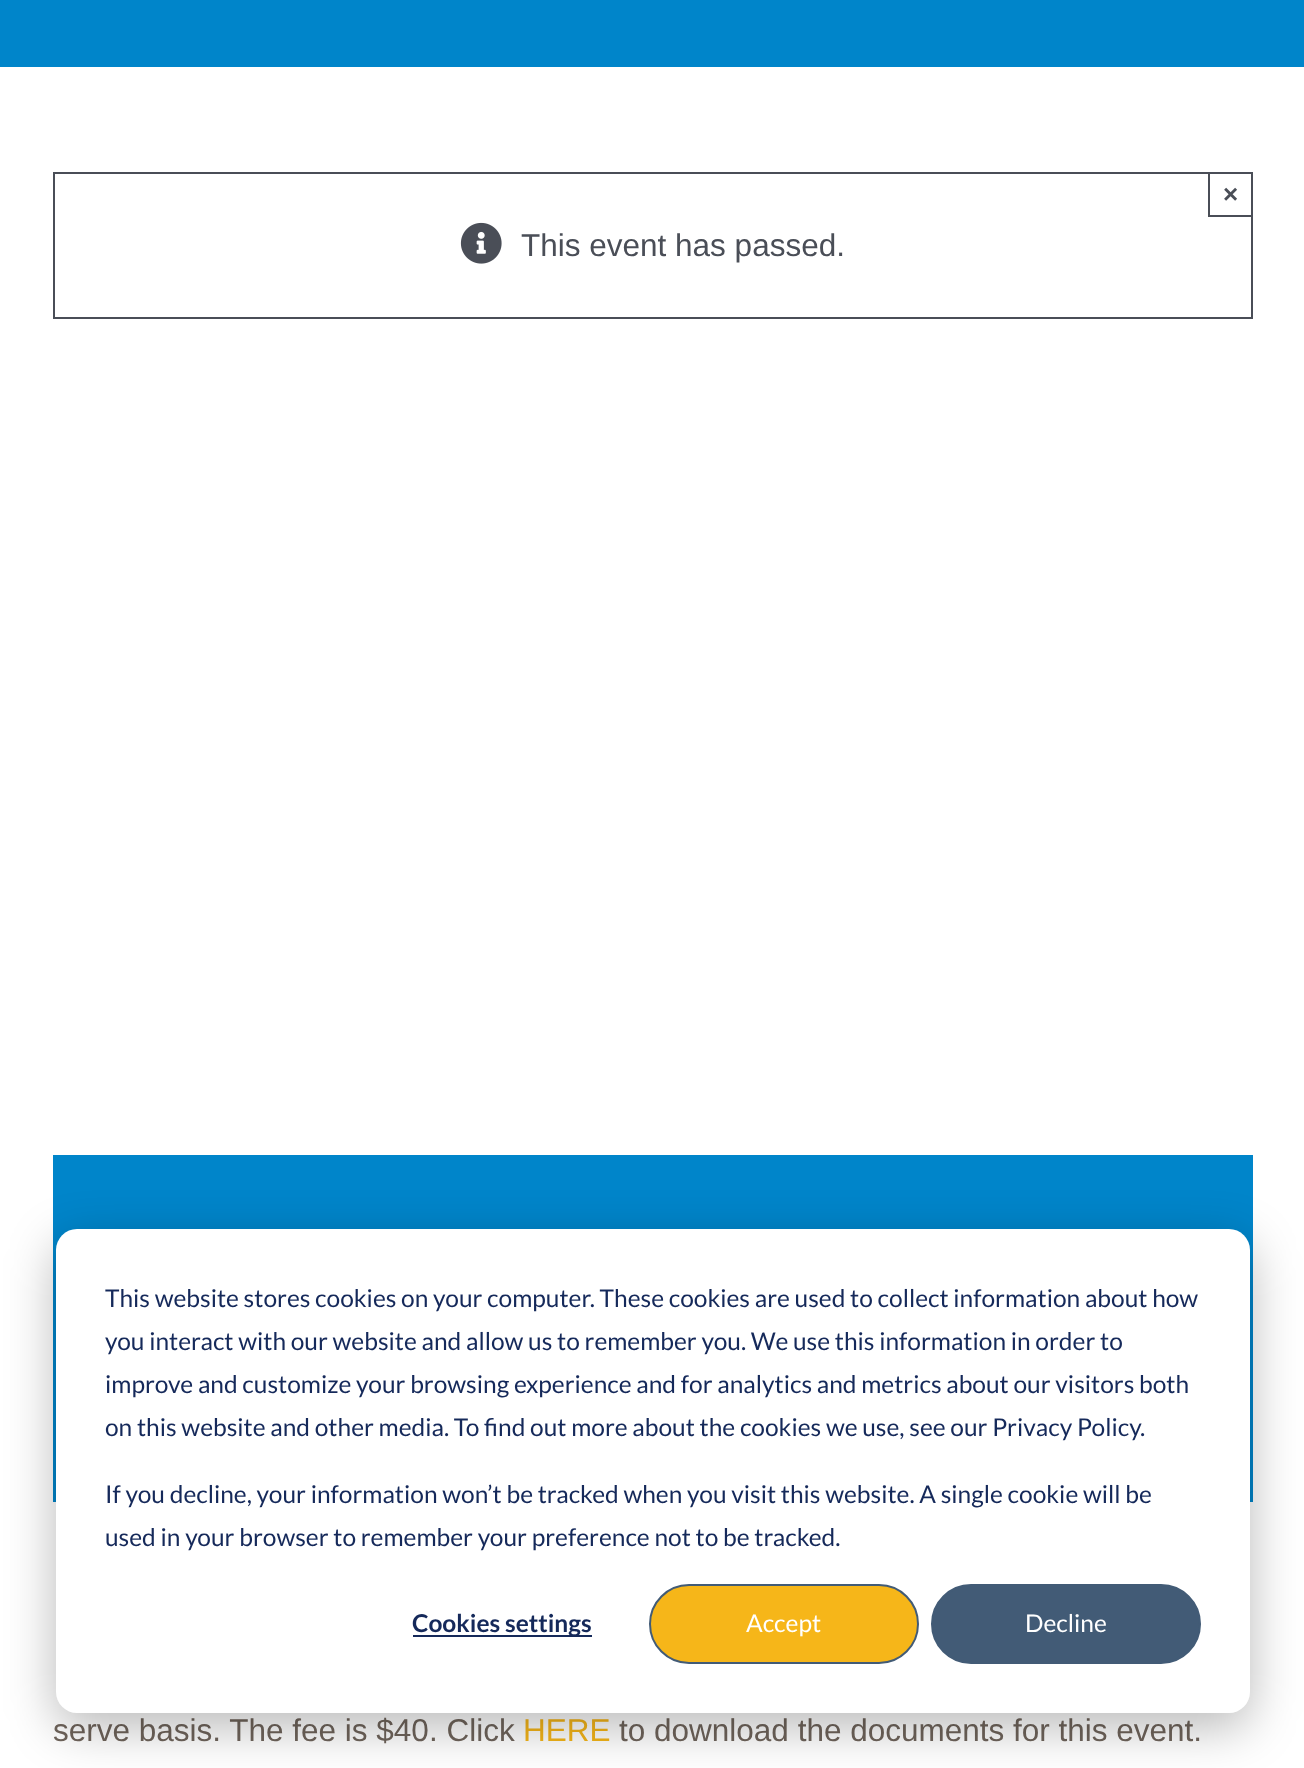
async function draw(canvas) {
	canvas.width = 1304;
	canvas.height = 1768;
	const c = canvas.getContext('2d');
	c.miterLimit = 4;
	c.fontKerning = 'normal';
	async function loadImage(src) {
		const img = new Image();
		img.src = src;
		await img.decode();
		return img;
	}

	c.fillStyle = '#fff';
	c.fillRect(0, 0, 1304, 1768);
	c.fillStyle = '#0085ca';
	c.fillRect(0, 0, 1304, 67);
	c.strokeStyle = '#4a4e57';
	c.lineWidth = 2;
	c.strokeRect(54, 173, 1198, 145);
	c.fillStyle = '#4a4e57';
	c.fillRect(1208, 215, 45, 2);
	c.fillRect(1208, 172, 2, 45);
	c.font = 'bold 26px Liberation Sans';
	c.fillText('×', 1223, 203);
	c.drawImage(await loadImage('img1.png'), 460, 222, 42, 42);
	c.font = '31.5px Liberation Sans';
	c.fillText('This event has passed.', 521, 256);
	c.fillStyle = '#0085ca';
	c.fillRect(53, 1155, 1200, 347);
	c.fillStyle = '#70655c';
	c.fillText('serve basis. The fee is $40. Click', 53, 1741);
	c.fillStyle = '#f6b619';
	c.fillText('HERE', 523, 1741);
	c.fillStyle = '#70655c';
	c.fillText('to download the documents for this event.', 619, 1741);
	c.fillStyle = '#00000047';
	c.filter = 'blur(24.5px)';
	c.beginPath();
	c.roundRect(56, 1243, 1194, 484, 21);
	c.fill();
	c.filter = 'none';
	c.fillStyle = '#fff';
	c.beginPath();
	c.roundRect(56, 1229, 1194, 484, 21);
	c.fill();
	c.font = '24.5px Lato';
	c.fillStyle = '#15295a';
	for (const [text, x, y] of [
		['This website stores cookies on your computer. These cookies are used to collect information about how', 105, 1307],
		['you interact with our website and allow us to remember you. We use this information in order to', 105, 1350],
		['improve and customize your browsing experience and for analytics and metrics about our visitors both', 105, 1393],
		['on this website and other media. To find out more about the cookies we use, see our Privacy Policy.', 105, 1436],
		['If you decline, your information won’t be tracked when you visit this website. A single cookie will be', 105, 1503],
		['used in your browser to remember your preference not to be tracked.', 105, 1546],
	]) {
		c.fillText(text, x, y);
	}
	c.fillRect(413, 1635, 179, 2);
	c.font = 'bold 24.5px Lato';
	c.fillText('Cookies settings', 412, 1632);
	c.fillStyle = '#f6b619';
	c.beginPath();
	c.roundRect(650, 1585, 268, 78, 39);
	c.fill();
	c.strokeStyle = '#425b76';
	c.stroke();
	c.font = '24.5px Lato';
	c.fillStyle = '#fff';
	c.fillText('Accept', 746, 1632);
	c.fillStyle = '#425b76';
	c.beginPath();
	c.roundRect(932, 1585, 268, 78, 39);
	c.fill();
	c.stroke();
	c.fillStyle = '#fff';
	c.fillText('Decline', 1025, 1632);
}

draw(document.querySelector('canvas'));
